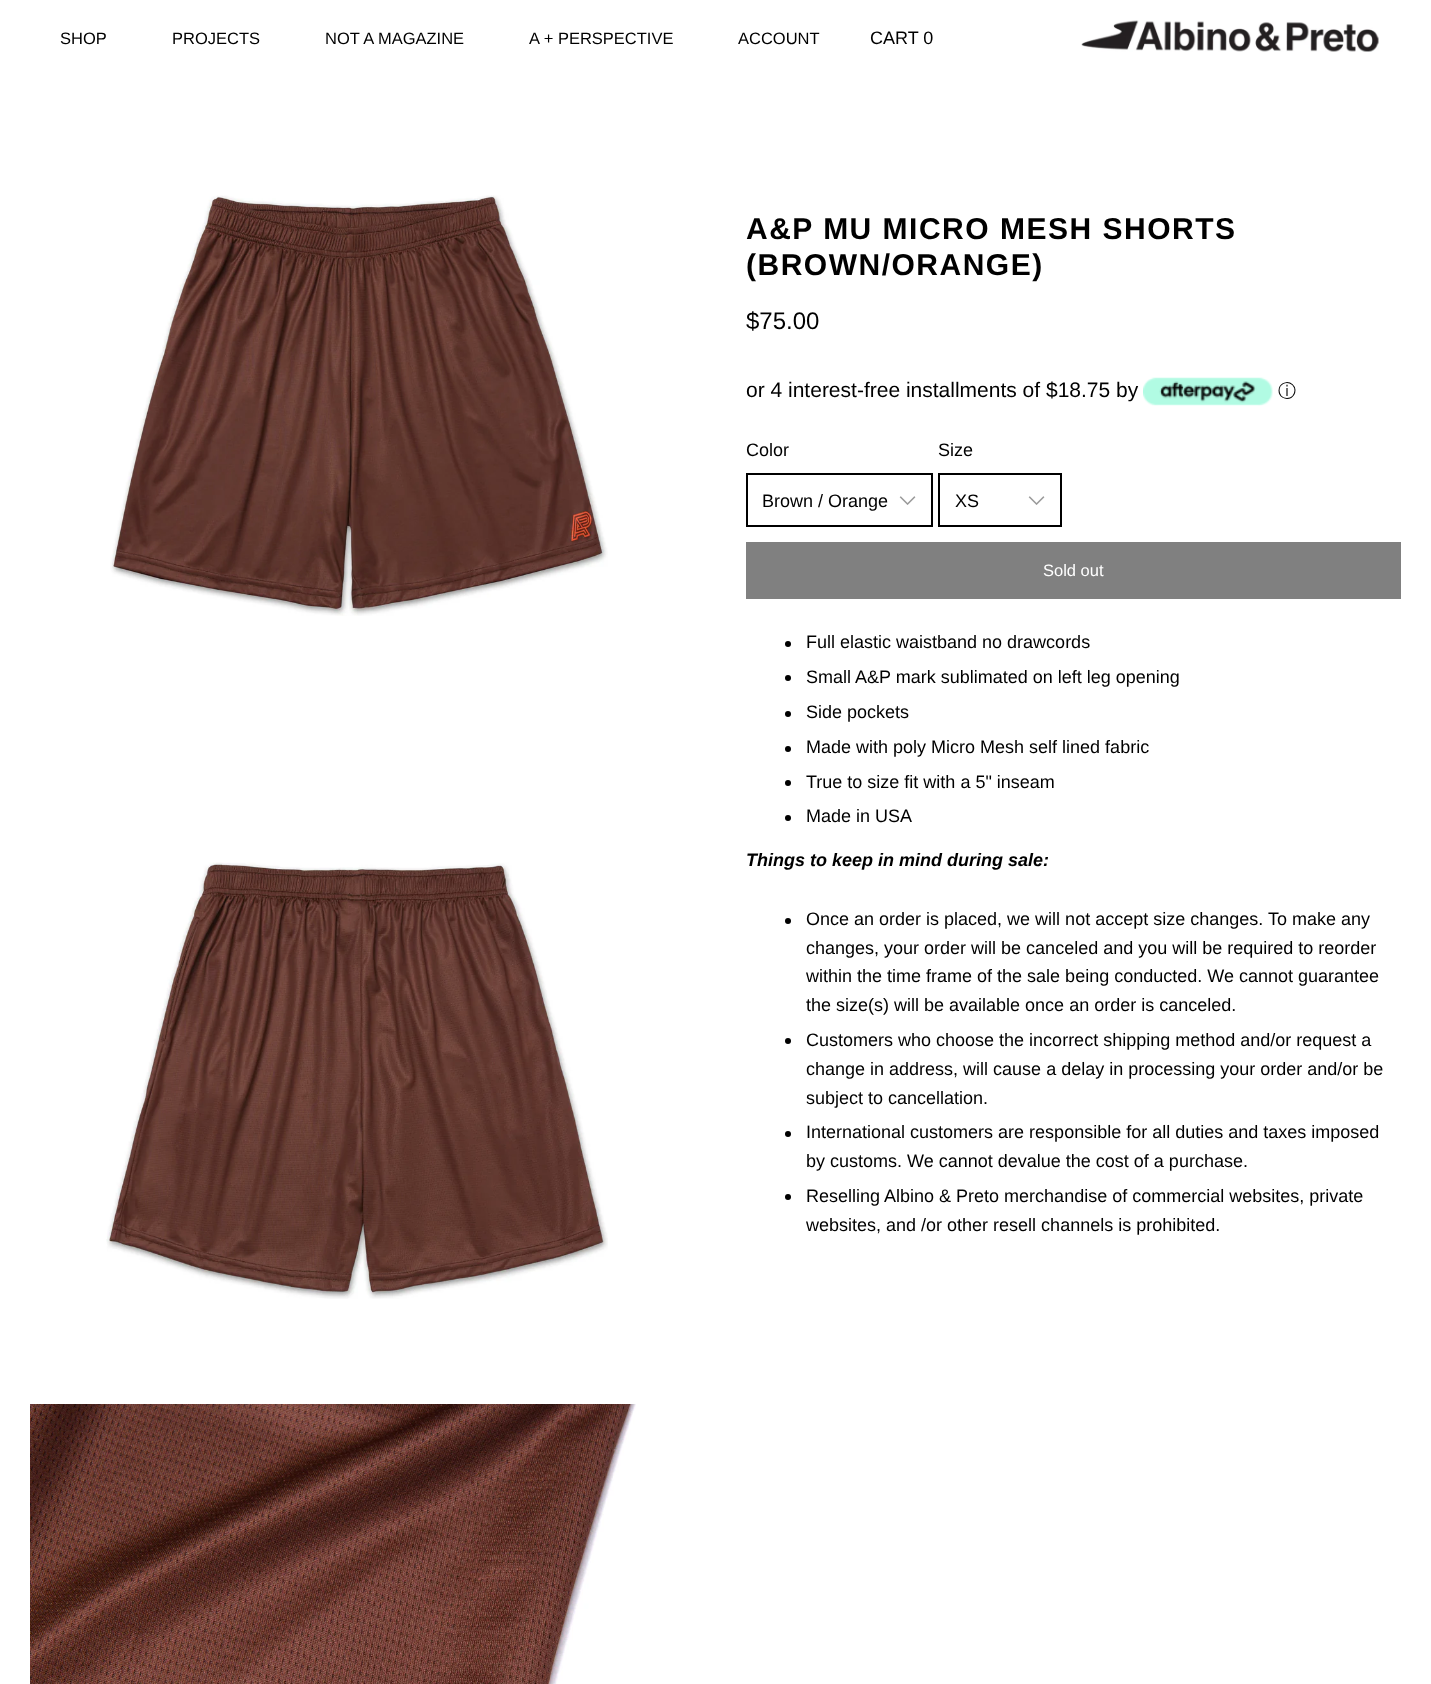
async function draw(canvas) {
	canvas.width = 1431;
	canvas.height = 1684;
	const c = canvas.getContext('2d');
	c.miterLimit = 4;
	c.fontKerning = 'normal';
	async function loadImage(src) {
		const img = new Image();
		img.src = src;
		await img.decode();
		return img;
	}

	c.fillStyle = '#fff';
	c.fillRect(0, 0, 1431, 1684);
	c.font = '16.5px Liberation Sans';
	c.fillStyle = '#000';
	for (const [text, x, y] of [
		['SHOP', 60, 44],
		['PROJECTS', 172, 44],
		['NOT A MAGAZINE', 325, 44],
		['A + PERSPECTIVE', 529, 44],
		['ACCOUNT', 738, 44],
	]) {
		c.fillText(text, x, y);
	}
	c.font = '18px Liberation Sans';
	c.fillText('CART 0', 870, 44);
	c.drawImage(await loadImage('img1.png'), 1081, 20, 298, 32);
	c.drawImage(await loadImage('img2.png'), 110, 195, 498, 421);
	c.drawImage(await loadImage('img3.png'), 106, 862, 502, 437);
	c.drawImage(await loadImage('img4.png'), 30, 1404, 606, 280);
	c.letterSpacing = '1.5px';
	c.font = 'bold 30px Liberation Sans';
	c.fillText('A&P MU MICRO MESH SHORTS', 746, 239);
	c.fillText('(BROWN/ORANGE)', 746, 275);
	c.letterSpacing = '0px';
	c.font = '24px Liberation Sans';
	c.fillText('$75.00', 746, 329);
	c.font = '21px Liberation Sans';
	c.fillText('or 4 interest-free installments of $18.75 by', 746, 397);
	c.drawImage(await loadImage('img5.png'), 1143, 377, 130, 29);
	c.font = '500 18px WenQuanYi Zen Hei';
	c.fillText('ⓘ', 1278, 397);
	c.font = '18px Liberation Sans';
	c.fillText('Color', 746, 456);
	c.drawImage(await loadImage('img6.png'), 899, 496, 17, 9);
	c.strokeStyle = '#000';
	c.lineWidth = 2;
	c.strokeRect(747, 474, 185, 52);
	c.fillText('Brown / Orange', 762, 507);
	c.fillText('Size', 938, 456);
	c.drawImage(await loadImage('img6.png'), 1028, 496, 17, 9);
	c.strokeRect(939, 474, 122, 52);
	c.fillText('XS', 955, 507);
	c.fillStyle = '#808080';
	c.fillRect(746, 542, 655, 57);
	c.font = '16.5px Liberation Sans';
	c.fillStyle = '#fff';
	c.fillText('Sold out', 1043, 576);
	c.fillStyle = '#000';
	c.beginPath();
	c.arc(788, 644, 3, 0, 2 * Math.PI);
	c.fill();
	c.font = '18px Liberation Sans';
	c.fillText('Full elastic waistband no drawcords', 806, 648);
	c.beginPath();
	c.arc(788, 678, 3, 0, 2 * Math.PI);
	c.fill();
	c.fillText('Small A&P mark sublimated on left leg opening', 806, 683);
	c.beginPath();
	c.arc(788, 714, 3, 0, 2 * Math.PI);
	c.fill();
	c.fillText('Side pockets', 806, 718);
	c.beginPath();
	c.arc(788, 749, 3, 0, 2 * Math.PI);
	c.fill();
	c.fillText('Made with poly Micro Mesh self lined fabric', 806, 753);
	c.beginPath();
	c.arc(788, 783, 3, 0, 2 * Math.PI);
	c.fill();
	c.fillText('True to size fit with a 5" inseam', 806, 788);
	c.beginPath();
	c.arc(788, 818, 3, 0, 2 * Math.PI);
	c.fill();
	c.fillText('Made in USA', 806, 822);
	c.font = 'italic bold 18px Liberation Sans';
	c.fillText('Things to keep in mind during sale:', 746, 866);
	c.beginPath();
	c.arc(788, 921, 3, 0, 2 * Math.PI);
	c.fill();
	c.font = '18px Liberation Sans';
	for (const [text, x, y] of [
		['Once an order is placed, we will not accept size changes. To make any', 806, 925],
		['changes, your order will be canceled and you will be required to reorder', 806, 954],
		['within the time frame of the sale being conducted. We cannot guarantee', 806, 982],
		['the size(s) will be available once an order is canceled.', 806, 1011],
	]) {
		c.fillText(text, x, y);
	}
	c.beginPath();
	c.arc(788, 1041, 3, 0, 2 * Math.PI);
	c.fill();
	for (const [text, x, y] of [
		['Customers who choose the incorrect shipping method and/or request a', 806, 1046],
		['change in address, will cause a delay in processing your order and/or be', 806, 1075],
		['subject to cancellation.', 806, 1104],
	]) {
		c.fillText(text, x, y);
	}
	c.beginPath();
	c.arc(788, 1134, 3, 0, 2 * Math.PI);
	c.fill();
	c.fillText('International customers are responsible for all duties and taxes imposed', 806, 1138);
	c.fillText('by customs. We cannot devalue the cost of a purchase.', 806, 1167);
	c.beginPath();
	c.arc(788, 1197, 3, 0, 2 * Math.PI);
	c.fill();
	c.fillText('Reselling Albino & Preto merchandise of commercial websites, private', 806, 1202);
	c.fillText('websites, and /or other resell channels is prohibited.', 806, 1231);
}

draw(document.querySelector('canvas'));
